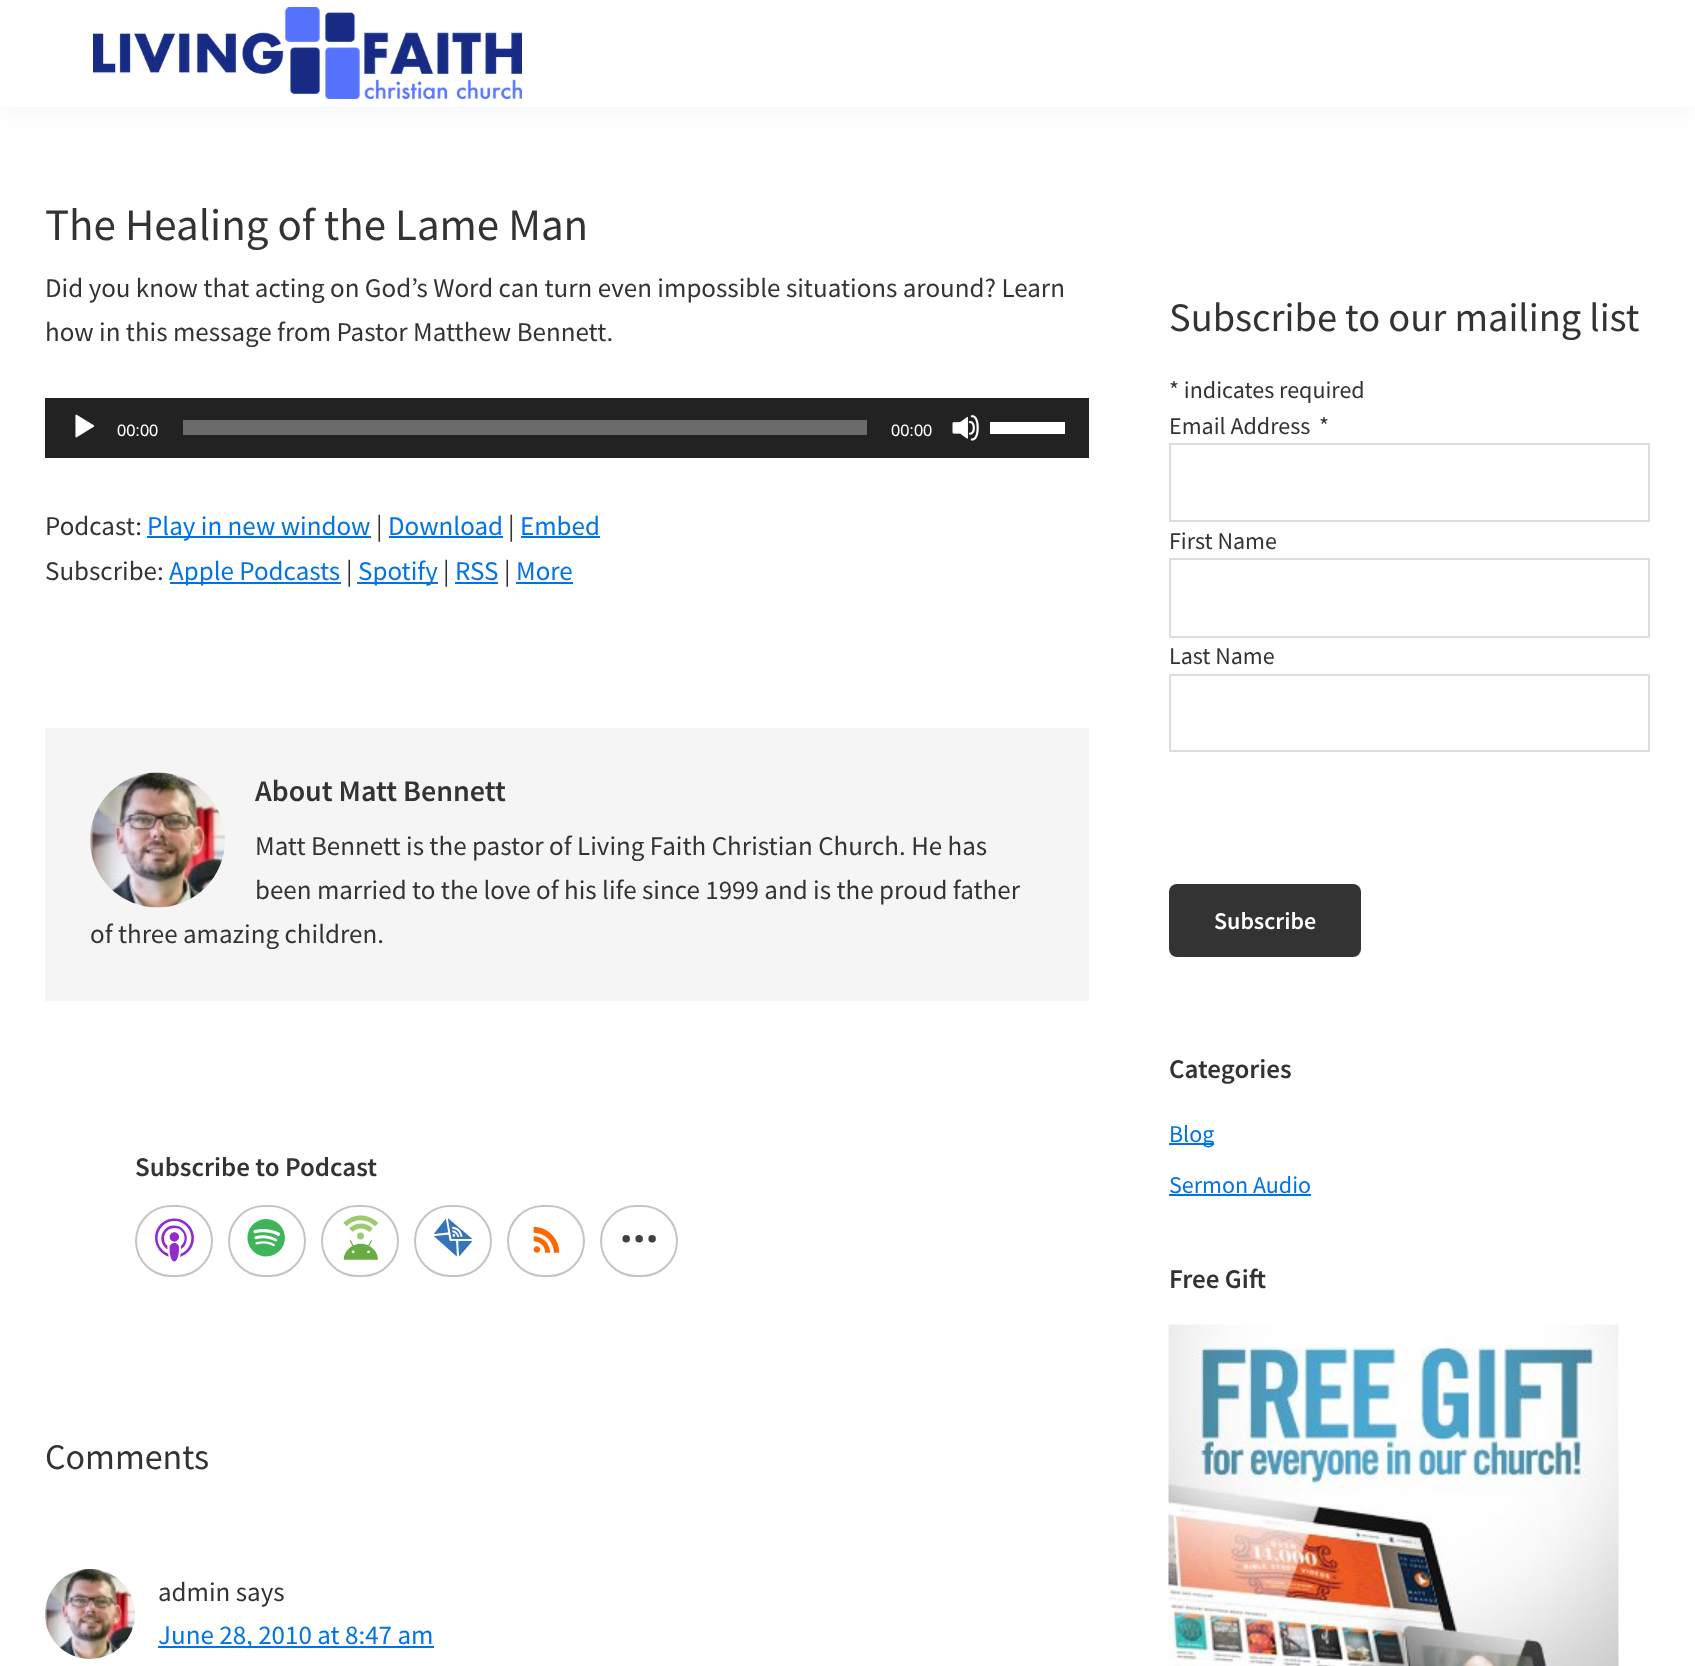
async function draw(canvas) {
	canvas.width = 1695;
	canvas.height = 1666;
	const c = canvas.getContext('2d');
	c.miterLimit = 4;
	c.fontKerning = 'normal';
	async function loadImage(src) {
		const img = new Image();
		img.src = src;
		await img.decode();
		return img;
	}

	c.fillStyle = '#fff';
	c.fillRect(0, 0, 1695, 1666);
	c.fillStyle = '#0000000d';
	c.filter = 'blur(15px)';
	c.beginPath();
	c.rect(0, 0, 1695, 107);
	c.fill();
	c.filter = 'none';
	c.fillStyle = '#fff';
	c.fillRect(0, 0, 1695, 107);
	c.drawImage(await loadImage('img1.png'), 93, 7, 429, 92);
	c.font = '45px Source Sans Pro';
	c.fillStyle = '#333';
	c.fillText('The Healing of the Lame Man', 45, 240);
	c.font = '27px Source Sans Pro';
	c.fillText('Did you know that acting on God’s Word can turn even impossible situations around? Learn', 45, 297);
	c.fillText('how in this message from Pastor Matthew Bennett.', 45, 341);
	c.fillStyle = '#222';
	c.fillRect(45, 398, 1044, 60);
	c.drawImage(await loadImage('img2.png'), 75, 414, 20, 24);
	c.font = '16.5px Liberation Sans';
	c.fillStyle = '#fff';
	c.fillText('00:00', 117, 436);
	c.fillStyle = '#6b6b6b';
	c.fillRect(183, 420, 684, 15);
	c.fillStyle = '#fff';
	c.fillText('00:00', 891, 436);
	c.drawImage(await loadImage('img3.png'), 952, 415, 27, 26);
	c.fillRect(990, 422, 75, 12);
	c.font = '27px Source Sans Pro';
	c.fillStyle = '#333';
	c.fillText('Podcast:', 45, 535);
	c.fillStyle = '#0073e5';
	c.fillRect(147, 536, 224, 2);
	c.fillText('Play in new window', 147, 535);
	c.fillStyle = '#333';
	c.fillText('|', 376, 535);
	c.fillStyle = '#0073e5';
	c.fillText('Download', 388, 535);
	c.fillRect(389, 536, 114, 2);
	c.fillStyle = '#333';
	c.fillText('|', 508, 535);
	c.fillStyle = '#0073e5';
	c.fillText('Embed', 520, 535);
	c.fillRect(521, 536, 79, 2);
	c.fillStyle = '#333';
	c.fillText('Subscribe:', 45, 580);
	c.fillStyle = '#0073e5';
	c.fillRect(170, 582, 171, 2);
	c.fillText('Apple Podcasts', 169, 580);
	c.fillStyle = '#333';
	c.fillText('|', 346, 580);
	c.fillStyle = '#0073e5';
	c.fillRect(357, 582, 81, 2);
	c.fillText('Spotify', 358, 580);
	c.fillStyle = '#333';
	c.fillText('|', 443, 580);
	c.fillStyle = '#0073e5';
	c.fillText('RSS', 455, 580);
	c.fillRect(455, 582, 43, 2);
	c.fillStyle = '#333';
	c.fillText('|', 504, 580);
	c.fillStyle = '#0073e5';
	c.fillText('More', 516, 580);
	c.fillRect(516, 582, 57, 2);
	c.fillStyle = '#f5f5f5';
	c.fillRect(45, 728, 1044, 273);
	c.drawImage(await loadImage('img4.png'), 90, 772, 135, 136);
	c.font = '600 30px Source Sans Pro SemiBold';
	c.fillStyle = '#333';
	c.fillText('About Matt Bennett', 255, 801);
	c.font = '27px Source Sans Pro';
	for (const [text, x, y] of [
		['Matt Bennett is the pastor of Living Faith Christian Church. He has', 255, 855],
		['been married to the love of his life since 1999 and is the proud father', 255, 899],
		['of three amazing children.', 90, 943],
	]) {
		c.fillText(text, x, y);
	}
	c.font = '600 27px Source Sans Pro SemiBold';
	c.fillText('Subscribe to Podcast', 135, 1176);
	c.beginPath();
	c.roundRect(136, 1206, 76, 70, 35);
	c.strokeStyle = '#c4c4c4';
	c.lineWidth = 2;
	c.stroke();
	c.drawImage(await loadImage('img5.png'), 155, 1218, 39, 44);
	c.beginPath();
	c.roundRect(229, 1206, 76, 70, 35);
	c.stroke();
	c.drawImage(await loadImage('img6.png'), 247, 1219, 38, 38);
	c.beginPath();
	c.roundRect(322, 1206, 76, 70, 35);
	c.stroke();
	c.drawImage(await loadImage('img7.png'), 343, 1215, 36, 45);
	c.beginPath();
	c.roundRect(415, 1206, 76, 70, 35);
	c.stroke();
	c.drawImage(await loadImage('img8.png'), 434, 1218, 38, 39);
	c.beginPath();
	c.roundRect(508, 1206, 76, 70, 35);
	c.stroke();
	c.drawImage(await loadImage('img9.png'), 533, 1226, 27, 27);
	c.beginPath();
	c.roundRect(601, 1206, 76, 70, 35);
	c.stroke();
	c.drawImage(await loadImage('img10.png'), 622, 1235, 34, 8);
	c.font = '36px Source Sans Pro';
	c.fillText('Comments', 45, 1469);
	c.drawImage(await loadImage('img11.png'), 45, 1569, 90, 90);
	c.font = '27px Source Sans Pro';
	c.fillText('admin says', 158, 1601);
	c.fillStyle = '#0073e5';
	c.fillRect(158, 1646, 276, 2);
	c.fillText('June 28, 2010 at 8:47 am', 158, 1644);
	c.font = '40.5px Source Sans Pro';
	c.fillStyle = '#333';
	c.fillText('Subscribe to our mailing list', 1169, 331);
	c.font = '24px Source Sans Pro';
	for (const [text, x, y] of [
		['* indicates required', 1169, 398],
		['Email Address', 1169, 434],
		['*', 1319, 434],
	]) {
		c.fillText(text, x, y);
	}
	c.strokeStyle = '#ddd';
	c.strokeRect(1170, 444, 479, 77);
	c.fillText('First Name', 1169, 549);
	c.strokeRect(1170, 559, 479, 78);
	c.fillText('Last Name', 1169, 664);
	c.strokeRect(1170, 675, 479, 76);
	c.beginPath();
	c.roundRect(1169, 884, 192, 73, 8);
	c.fill();
	c.font = '600 24px Source Sans Pro SemiBold';
	c.fillStyle = '#fff';
	c.fillText('Subscribe', 1214, 929);
	c.font = '600 27px Source Sans Pro SemiBold';
	c.fillStyle = '#333';
	c.fillText('Categories', 1169, 1078);
	c.fillStyle = '#0073e5';
	c.fillRect(1169, 1143, 45, 2);
	c.font = '24px Source Sans Pro';
	c.fillText('Blog', 1169, 1142);
	c.fillText('Sermon Audio', 1169, 1193);
	c.fillRect(1169, 1194, 142, 2);
	c.font = '600 27px Source Sans Pro SemiBold';
	c.fillStyle = '#333';
	c.fillText('Free Gift', 1169, 1288);
	c.drawImage(await loadImage('img12.png'), 1168, 1324, 451, 342);
}

draw(document.querySelector('canvas'));
